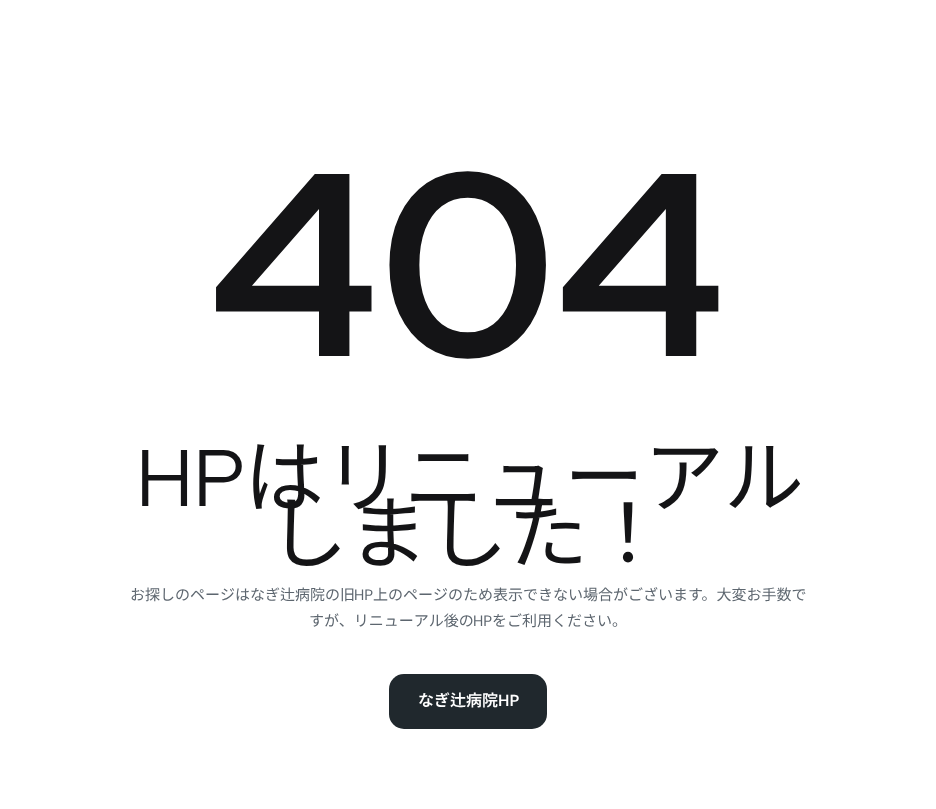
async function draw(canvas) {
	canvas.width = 936;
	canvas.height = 809;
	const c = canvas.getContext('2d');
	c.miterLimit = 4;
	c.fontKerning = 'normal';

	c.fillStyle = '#fff';
	c.fillRect(0, 0, 936, 809);
	c.font = 'bold 260px Red Hat Display';
	c.fillStyle = '#141416';
	c.fillText('404', 209, 356);
	c.font = '80px Red Hat Display';
	c.fillText('HP', 136, 506);
	c.font = '80px Noto Sans JP';
	c.fillText('はリニューアル', 244, 506);
	c.fillText('しました！', 268, 562);
	c.font = '15px Noto Sans JP';
	c.fillStyle = '#5d666f';
	c.fillText('お探しのページはなぎ辻病院の旧', 130, 600);
	c.font = '15px DM Sans';
	c.fillText('HP', 354, 600);
	c.font = '15px Noto Sans JP';
	c.fillText('上のページのため表示できない場合がございます。大変お手数で', 373, 600);
	c.fillText('すが、リニューアル後の', 309, 626);
	c.font = '15px DM Sans';
	c.fillText('HP', 473, 626);
	c.font = '15px Noto Sans JP';
	c.fillText('をご利用ください。', 492, 626);
	c.fillStyle = '#20282d';
	c.beginPath();
	c.roundRect(389, 674, 158, 55, 15);
	c.fill();
	c.font = '600 16px Noto Sans JP';
	c.fillStyle = '#fff';
	c.fillText('なぎ辻病院', 418, 706);
	c.font = '600 16px DM Sans';
	c.fillText('HP', 498, 706);
}

draw(document.querySelector('canvas'));
